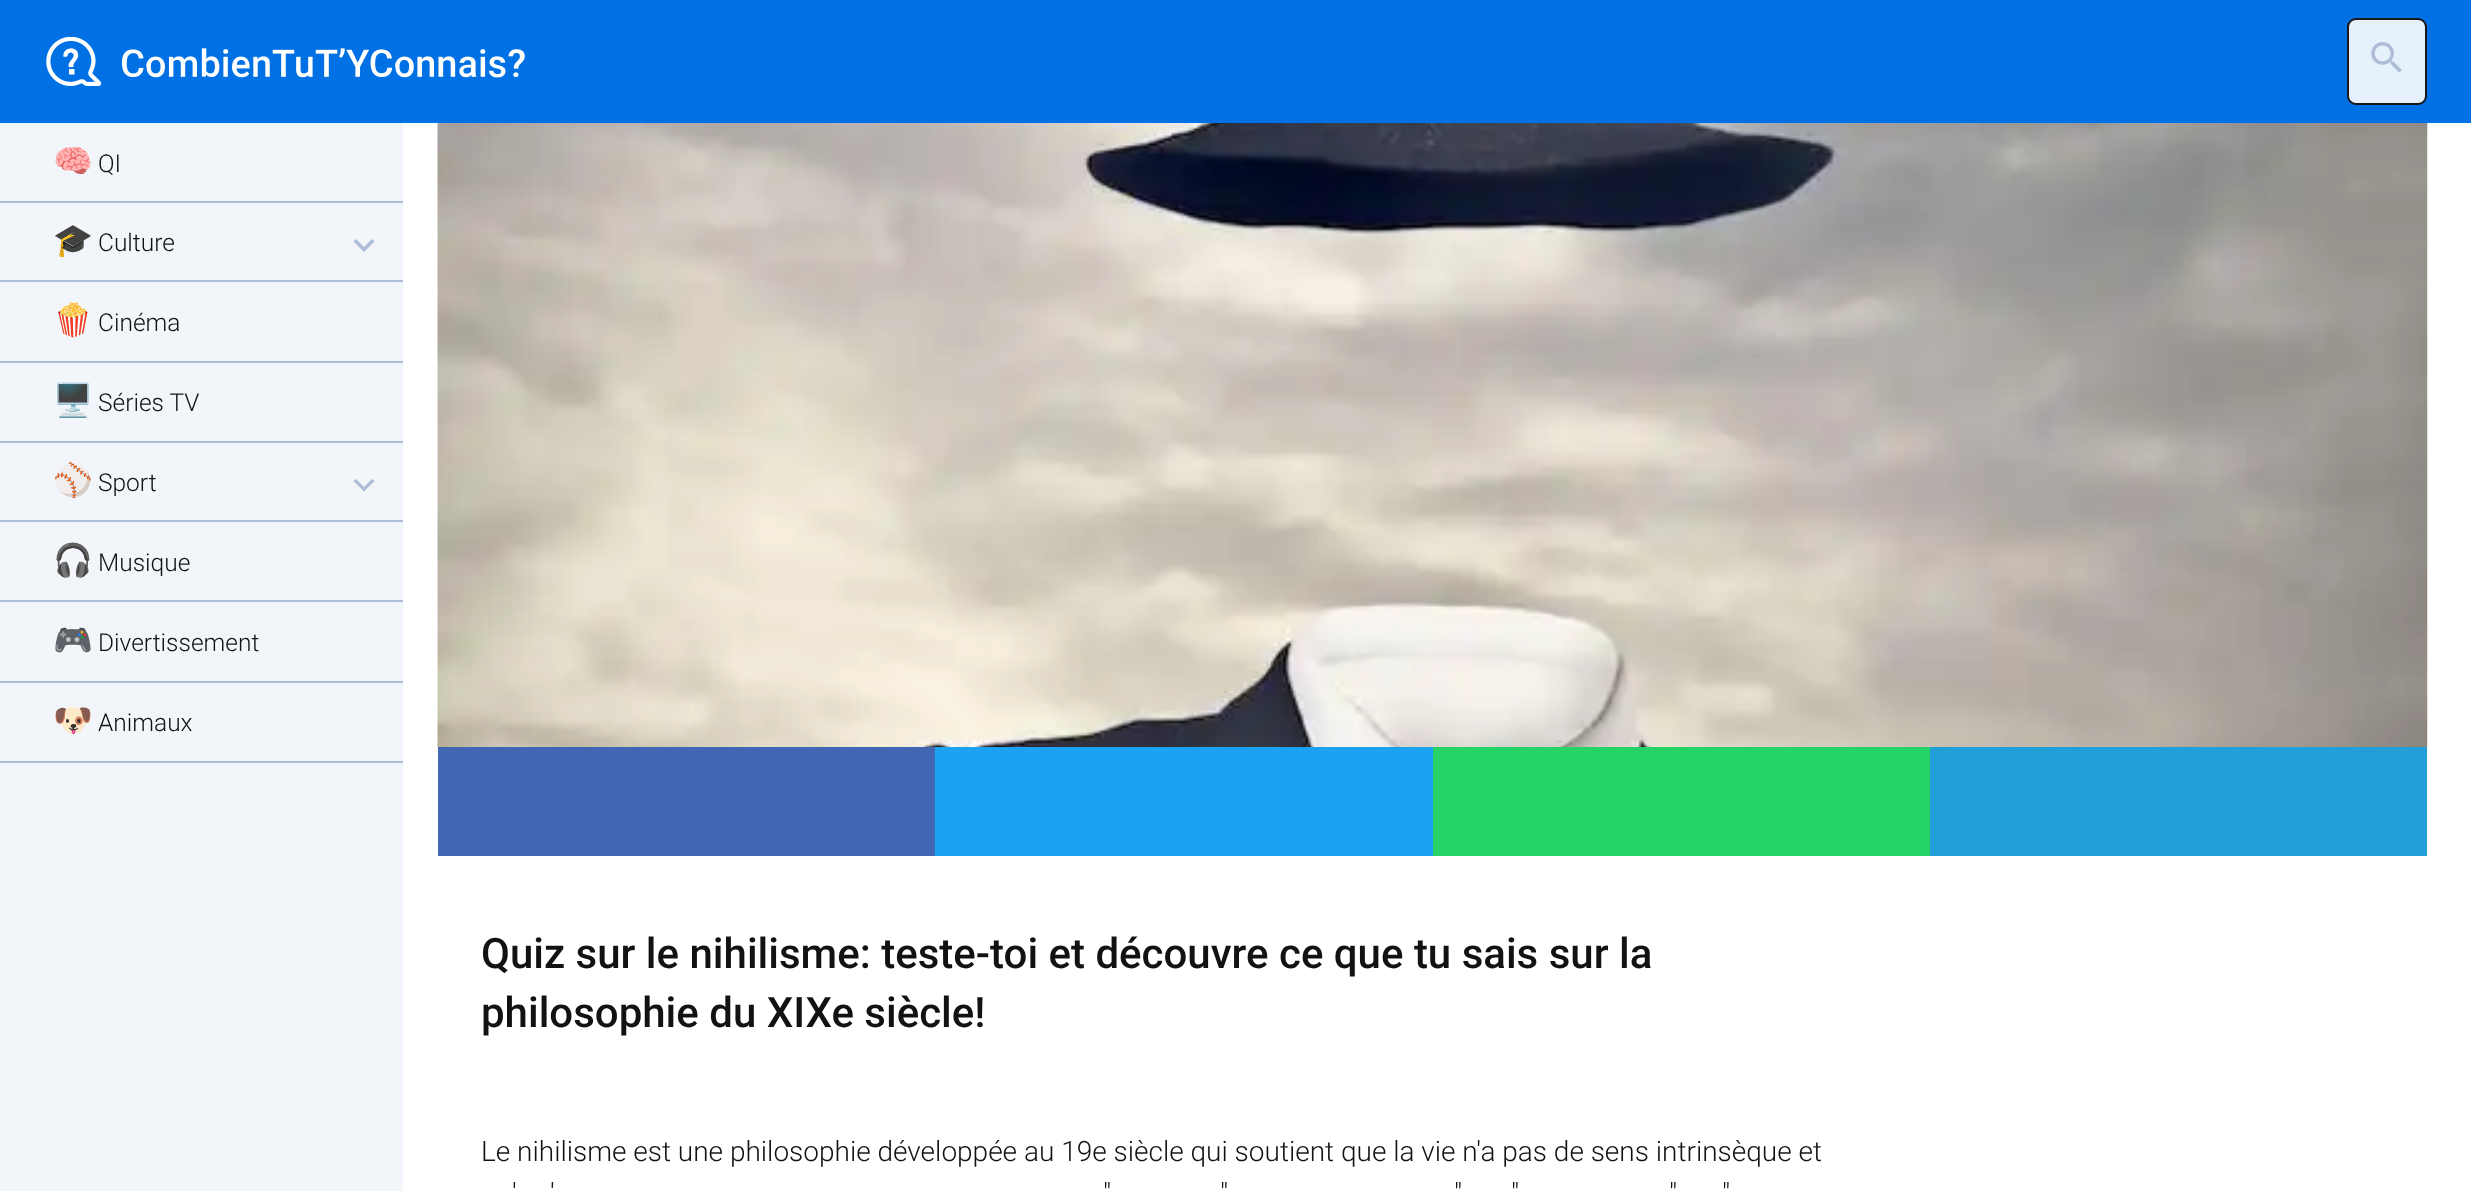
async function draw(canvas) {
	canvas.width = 2471;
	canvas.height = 1191;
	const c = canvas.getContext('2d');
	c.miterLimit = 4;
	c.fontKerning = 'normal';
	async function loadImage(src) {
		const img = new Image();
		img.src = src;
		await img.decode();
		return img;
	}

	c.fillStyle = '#fff';
	c.fillRect(0, 0, 2471, 1191);
	c.fillStyle = '#0071e4';
	c.fillRect(0, 0, 2471, 123);
	c.drawImage(await loadImage('img1.png'), 46, 37, 479, 49);
	c.fillStyle = '#e7f1fc';
	c.beginPath();
	c.roundRect(2348, 19, 78, 85, 8);
	c.fill();
	c.strokeStyle = '#191919';
	c.lineWidth = 2;
	c.stroke();
	c.drawImage(await loadImage('img2.png'), 2371, 42, 31, 31);
	c.fillStyle = '#f2f6fa';
	c.fillRect(0, 123, 403, 1068);
	c.fillStyle = '#aebdd7';
	c.fillRect(0, 201, 403, 2);
	c.font = '300 32px Noto Sans';
	c.fillStyle = '#121212';
	c.fillText('🧠', 53, 172);
	c.font = '300 24.5px Roboto';
	c.fillText('QI', 98, 172);
	c.fillStyle = '#aebdd7';
	c.fillRect(0, 280, 403, 2);
	c.font = '300 32px Noto Sans';
	c.fillStyle = '#121212';
	c.fillText('🎓', 53, 251);
	c.font = '300 24.5px Roboto';
	c.fillText('Culture', 98, 251);
	c.fillStyle = '#aebdd7';
	c.beginPath();
	c.moveTo(372, 239);
	c.lineTo(364, 247);
	c.lineTo(356, 239);
	c.lineTo(353.5, 241.5);
	c.lineTo(364, 252);
	c.lineTo(374.5, 241.5);
	c.closePath();
	c.fill();
	c.fillRect(0, 361, 403, 2);
	c.font = '300 32px Noto Sans';
	c.fillStyle = '#121212';
	c.fillText('🍿', 53, 331);
	c.font = '300 24.5px Roboto';
	c.fillText('Cinéma', 98, 331);
	c.fillStyle = '#aebdd7';
	c.fillRect(0, 441, 403, 2);
	c.font = '300 32px Noto Sans';
	c.fillStyle = '#121212';
	c.fillText('🖥️', 53, 411);
	c.font = '300 24.5px Roboto';
	c.fillText('Séries TV', 98, 411);
	c.fillStyle = '#aebdd7';
	c.fillRect(0, 520, 403, 2);
	c.font = '300 32px Noto Sans';
	c.fillStyle = '#121212';
	c.fillText('⚾', 53, 491);
	c.font = '300 24.5px Roboto';
	c.fillText('Sport', 98, 491);
	c.fillStyle = '#aebdd7';
	c.beginPath();
	c.moveTo(372, 479);
	c.lineTo(364, 487);
	c.lineTo(356, 479);
	c.lineTo(353.5, 481);
	c.lineTo(364, 491.5);
	c.lineTo(374.5, 481);
	c.closePath();
	c.fill();
	c.fillRect(0, 600, 403, 2);
	c.font = '300 32px Noto Sans';
	c.fillStyle = '#121212';
	c.fillText('🎧', 53, 571);
	c.font = '300 24.5px Roboto';
	c.fillText('Musique', 98, 571);
	c.fillStyle = '#aebdd7';
	c.fillRect(0, 681, 403, 2);
	c.font = '300 32px Noto Sans';
	c.fillStyle = '#121212';
	c.fillText('🎮', 53, 651);
	c.font = '300 24.5px Roboto';
	c.fillText('Divertissement', 98, 651);
	c.fillStyle = '#aebdd7';
	c.fillRect(0, 761, 403, 2);
	c.font = '300 32px Noto Sans';
	c.fillStyle = '#121212';
	c.fillText('🐶', 53, 731);
	c.font = '300 24.5px Roboto';
	c.fillText('Animaux', 98, 731);
	c.drawImage(await loadImage('img3.png'), 437, 123, 1991, 624);
	for (const [x, y, w, h, color] of [
		[438, 747, 497, 109, '#4267b2'],
		[935, 747, 498, 109, '#1da1f2'],
		[1433, 747, 497, 109, '#25d366'],
		[1930, 747, 497, 109, '#229ed9'],
	]) {
		c.fillStyle = color;
		c.fillRect(x, y, w, h);
	}
	c.font = '500 42px Roboto';
	c.fillStyle = '#121212';
	c.fillText('Quiz sur le nihilisme: teste-toi et découvre ce que tu sais sur la', 481, 968);
	c.fillText('philosophie du XIXe siècle!', 481, 1027);
	c.font = '300 28px Roboto';
	for (const [text, x, y] of [
		['Le nihilisme est une philosophie développée au 19e siècle qui soutient que la vie n\'a pas de sens intrinsèque et', 481, 1161],
		['\'', 512, 1203],
		['\'', 550, 1203],
		['"', 1103, 1203],
		['"', 1220, 1203],
		['"', 1454, 1203],
		['"', 1511, 1203],
		['"', 1669, 1203],
		['"', 1722, 1203],
	]) {
		c.fillText(text, x, y);
	}
}

draw(document.querySelector('canvas'));
